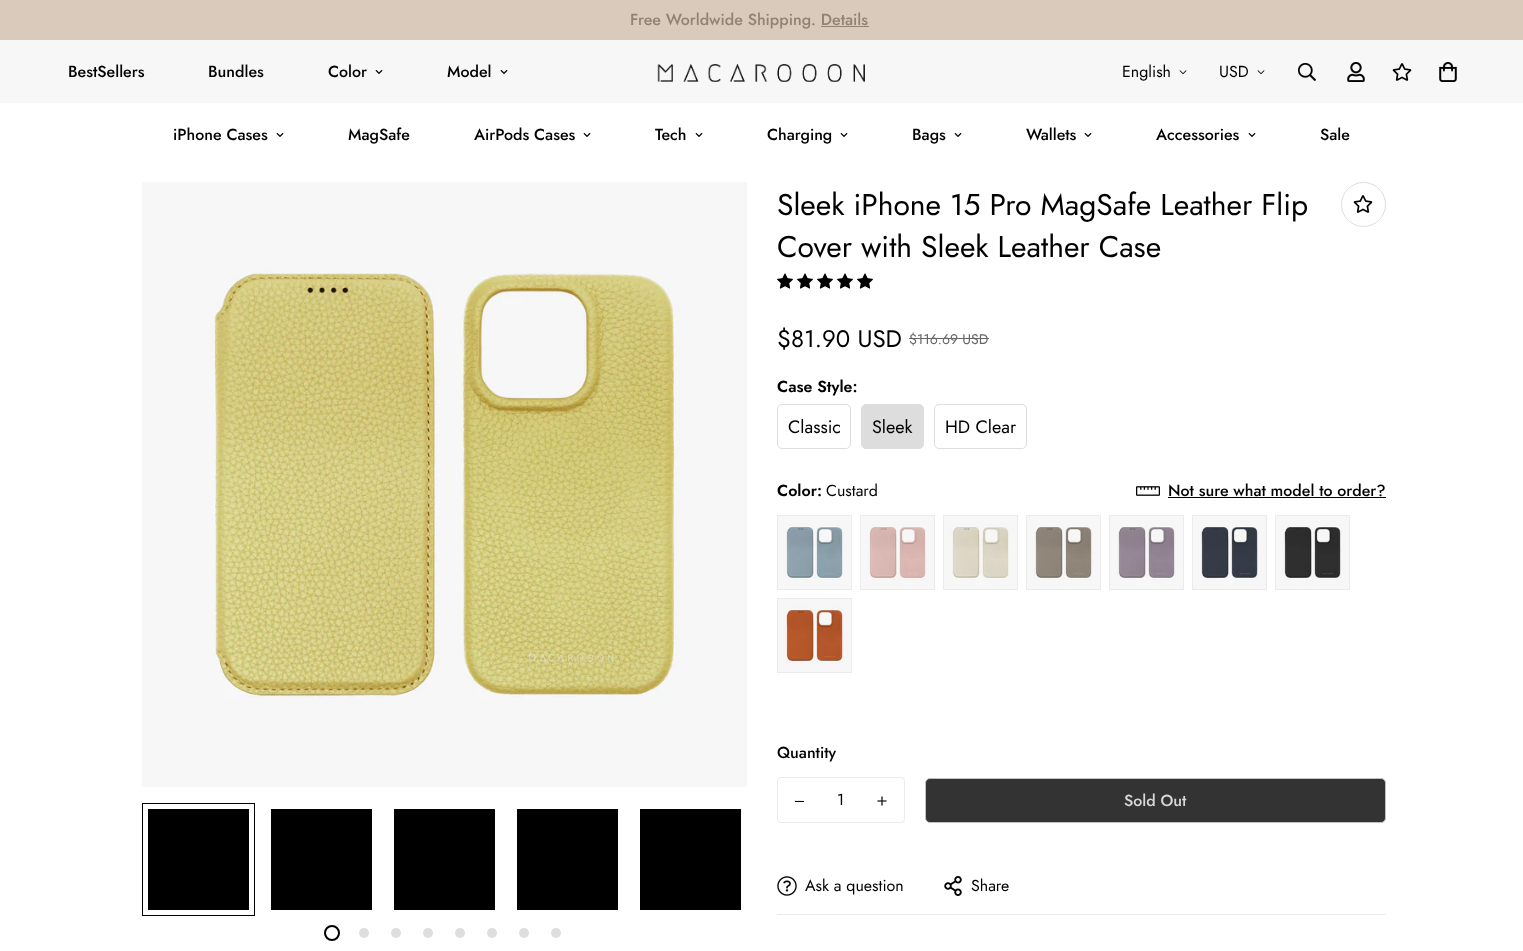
async function draw(canvas) {
	canvas.width = 1523;
	canvas.height = 951;
	const c = canvas.getContext('2d');
	c.miterLimit = 4;
	c.fontKerning = 'normal';
	async function loadImage(src) {
		const img = new Image();
		img.src = src;
		await img.decode();
		return img;
	}

	c.fillStyle = '#fff';
	c.fillRect(0, 0, 1523, 951);
	c.fillStyle = '#d9cabb';
	c.fillRect(0, 0, 1523, 40);
	c.font = '500 16px Jost';
	c.fillStyle = '#928272';
	c.fillText('Free Worldwide Shipping. Details', 630, 25);
	c.fillRect(821, 26, 48, 1);
	c.fillStyle = '#f7f7f7';
	c.fillRect(0, 40, 1523, 63);
	c.fillStyle = '#000';
	for (const [text, x, y] of [
		['BestSellers', 68, 77],
		['Bundles', 208, 77],
		['Color', 328, 77],
	]) {
		c.fillText(text, x, y);
	}
	c.drawImage(await loadImage('img1.png'), 375, 70, 8, 4);
	c.fillText('Model', 447, 77);
	c.drawImage(await loadImage('img1.png'), 500, 70, 8, 4);
	c.drawImage(await loadImage('img2.png'), 657, 64, 208, 18);
	c.font = '16px Jost';
	c.fillText('English', 1122, 77);
	c.drawImage(await loadImage('img3.png'), 1179, 70, 8, 5);
	c.fillText('USD', 1219, 77);
	c.drawImage(await loadImage('img3.png'), 1257, 70, 8, 5);
	c.drawImage(await loadImage('img4.png'), 1298, 63, 18, 18);
	c.drawImage(await loadImage('img5.png'), 1347, 62, 18, 20);
	c.drawImage(await loadImage('img6.png'), 1392, 63, 20, 18);
	c.drawImage(await loadImage('img7.png'), 1439, 62, 18, 20);
	c.font = '500 16px Jost';
	c.fillText('iPhone Cases', 173, 140);
	c.drawImage(await loadImage('img8.png'), 276, 133, 8, 4);
	c.fillText('MagSafe', 348, 140);
	c.fillText('AirPods Cases', 474, 140);
	c.drawImage(await loadImage('img8.png'), 583, 133, 8, 4);
	c.fillText('Tech', 655, 140);
	c.drawImage(await loadImage('img8.png'), 695, 133, 8, 4);
	c.fillText('Charging', 767, 140);
	c.drawImage(await loadImage('img8.png'), 840, 133, 8, 4);
	c.fillText('Bags', 912, 140);
	c.drawImage(await loadImage('img8.png'), 954, 133, 8, 4);
	c.fillText('Wallets', 1026, 140);
	c.drawImage(await loadImage('img8.png'), 1084, 133, 8, 4);
	c.fillText('Accessories', 1156, 140);
	c.drawImage(await loadImage('img8.png'), 1248, 133, 8, 4);
	c.fillText('Sale', 1320, 140);
	c.drawImage(await loadImage('img9.png'), 142, 182, 605, 605);
	c.strokeStyle = '#000';
	c.strokeRect(142.5, 803.5, 112, 112);
	for (const [x, y, w, h, color] of [
		[148, 809, 101, 101, '#000'],
		[271, 809, 101, 101, '#000'],
		[394, 809, 101, 101, '#000'],
		[517, 809, 101, 101, '#000'],
		[640, 809, 101, 101, '#000'],
	]) {
		c.fillStyle = color;
		c.fillRect(x, y, w, h);
	}
	c.beginPath();
	c.arc(332, 933, 7, 0, 2 * Math.PI);
	c.lineWidth = 2;
	c.stroke();
	c.fillStyle = '#dedede';
	c.beginPath();
	c.arc(364, 933, 5, 0, 2 * Math.PI);
	c.fill();
	c.beginPath();
	c.arc(396, 933, 5, 0, 2 * Math.PI);
	c.fill();
	c.beginPath();
	c.arc(428, 933, 5, 0, 2 * Math.PI);
	c.fill();
	c.beginPath();
	c.arc(460, 933, 5, 0, 2 * Math.PI);
	c.fill();
	c.beginPath();
	c.arc(492, 933, 5, 0, 2 * Math.PI);
	c.fill();
	c.beginPath();
	c.arc(524, 933, 5, 0, 2 * Math.PI);
	c.fill();
	c.beginPath();
	c.arc(556, 933, 5, 0, 2 * Math.PI);
	c.fill();
	c.font = '30px Jost';
	c.fillStyle = '#000';
	c.fillText('Sleek iPhone 15 Pro MagSafe Leather Flip', 777, 215);
	c.fillText('Cover with Sleek Leather Case', 777, 257);
	c.beginPath();
	c.arc(1363.5, 204.5, 22, 0, 2 * Math.PI);
	c.strokeStyle = '#dedede';
	c.lineWidth = 1;
	c.stroke();
	c.drawImage(await loadImage('img10.png'), 1353, 195, 20, 18);
	c.drawImage(await loadImage('img11.png'), 777, 273, 16, 16);
	c.drawImage(await loadImage('img11.png'), 797, 273, 16, 16);
	c.drawImage(await loadImage('img11.png'), 817, 273, 16, 16);
	c.drawImage(await loadImage('img11.png'), 837, 273, 16, 16);
	c.drawImage(await loadImage('img11.png'), 857, 273, 16, 16);
	c.font = '24px Jost';
	c.fillText('$81.90 USD', 777, 347);
	c.font = '14px Jost';
	c.fillStyle = '#666';
	c.fillText('$116.69 USD', 909, 344);
	c.fillRect(909, 338, 80, 1);
	c.font = '600 16px Jost';
	c.fillStyle = '#000';
	c.fillText('Case Style:', 777, 392);
	c.beginPath();
	c.roundRect(777.5, 404.5, 73, 44, 4.5);
	c.stroke();
	c.font = '18px Jost';
	c.fillText('Classic', 788, 433);
	c.fillStyle = '#ddd';
	c.beginPath();
	c.roundRect(861.5, 404.5, 62, 44, 4.5);
	c.fill();
	c.stroke();
	c.fillStyle = '#000';
	c.fillText('Sleek', 872, 433);
	c.beginPath();
	c.roundRect(934.5, 404.5, 92, 44, 4.5);
	c.stroke();
	c.fillText('HD Clear', 945, 433);
	c.font = '600 16px Jost';
	c.fillText('Color:', 777, 496);
	c.font = '16px Jost';
	c.fillText('Custard', 826, 496);
	c.drawImage(await loadImage('img12.png'), 1136, 486, 24, 10);
	c.font = '500 16px Jost';
	c.fillText('Not sure what model to order?', 1168, 496);
	c.fillRect(1168, 497, 218, 1);
	c.drawImage(await loadImage('img13.png'), 778, 516, 73, 73);
	c.strokeStyle = '#ebebeb';
	c.strokeRect(777.5, 515.5, 74, 74);
	c.drawImage(await loadImage('img14.png'), 861, 516, 73, 73);
	c.strokeRect(860.5, 515.5, 74, 74);
	c.drawImage(await loadImage('img15.png'), 944, 516, 73, 73);
	c.strokeRect(943.5, 515.5, 74, 74);
	c.drawImage(await loadImage('img16.png'), 1027, 516, 73, 73);
	c.strokeRect(1026.5, 515.5, 74, 74);
	c.drawImage(await loadImage('img17.png'), 1110, 516, 73, 73);
	c.strokeRect(1109.5, 515.5, 74, 74);
	c.drawImage(await loadImage('img18.png'), 1193, 516, 73, 73);
	c.strokeRect(1192.5, 515.5, 74, 74);
	c.drawImage(await loadImage('img19.png'), 1276, 516, 73, 73);
	c.strokeRect(1275.5, 515.5, 74, 74);
	c.drawImage(await loadImage('img20.png'), 778, 599, 73, 73);
	c.strokeRect(777.5, 598.5, 74, 74);
	c.fillText('Quantity', 777, 758);
	c.beginPath();
	c.roundRect(777.5, 777.5, 127, 45, 3.5);
	c.stroke();
	c.drawImage(await loadImage('img21.png'), 794, 800, 10, 2);
	c.font = '16px Jost';
	c.fillText('1', 837, 805);
	c.drawImage(await loadImage('img22.png'), 877, 796, 10, 10);
	c.fillStyle = '#333';
	c.beginPath();
	c.roundRect(925.5, 778.5, 460, 44, 4.5);
	c.fill();
	c.strokeStyle = '#c1c1c1';
	c.stroke();
	c.font = '500 16px Jost';
	c.fillStyle = '#d8d8d8';
	c.fillText('Sold Out', 1124, 806);
	c.fillStyle = '#ebebeb';
	c.fillRect(777, 914, 609, 1);
	c.drawImage(await loadImage('img23.png'), 777, 876, 20, 20);
	c.font = '16px Jost';
	c.fillStyle = '#000';
	c.fillText('Ask a question', 805, 891);
	c.drawImage(await loadImage('img24.png'), 944, 876, 18, 20);
	c.fillText('Share', 971, 891);
}

draw(document.querySelector('canvas'));
